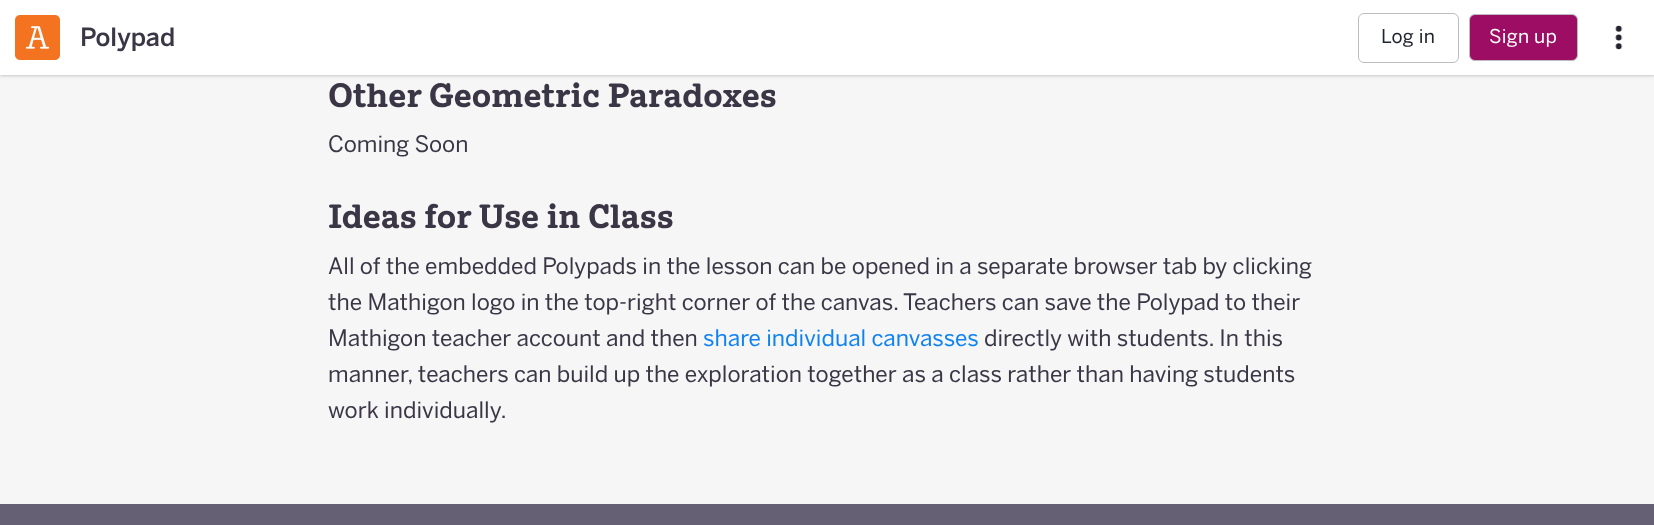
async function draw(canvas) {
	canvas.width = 1654;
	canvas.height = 525;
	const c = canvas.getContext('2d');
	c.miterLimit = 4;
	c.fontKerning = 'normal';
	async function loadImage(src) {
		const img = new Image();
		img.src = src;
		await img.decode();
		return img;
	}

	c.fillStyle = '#f6f6f6';
	c.fillRect(0, 0, 1654, 525);
	c.fillStyle = '#00000012';
	c.filter = 'blur(2px)';
	c.beginPath();
	c.rect(0, 1, 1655, 75);
	c.fill();
	c.filter = 'none';
	c.fillStyle = '#0000001f';
	c.filter = 'blur(1px)';
	c.beginPath();
	c.rect(0, 1, 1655, 75);
	c.fill();
	c.filter = 'none';
	c.fillStyle = '#fff';
	c.fillRect(0, 0, 1654, 75);
	c.drawImage(await loadImage('img1.png'), 15, 15, 45, 45);
	c.font = '500 25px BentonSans';
	c.fillStyle = '#3a3645';
	c.fillText('Polypad', 80, 46);
	c.beginPath();
	c.roundRect(1358.5, 13.5, 100, 49, 5.5);
	c.strokeStyle = '#bdbdbd';
	c.stroke();
	c.letterSpacing = '0.25px';
	c.font = '19px "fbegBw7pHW"';
	c.fillStyle = '#20242f';
	c.fillText('Log in', 1381, 43);
	c.fillStyle = '#9c0d63';
	c.beginPath();
	c.roundRect(1469.5, 14.5, 108, 46, 5.5);
	c.fill();
	c.stroke();
	c.fillStyle = '#fff';
	c.fillText('Sign up', 1489, 43);
	c.drawImage(await loadImage('img2.png'), 1615, 25, 8, 25);
	c.letterSpacing = '0px';
	c.font = 'bold 33.75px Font';
	c.fillStyle = '#3a3645';
	c.fillText('Other Geometric Paradoxes', 328, 107);
	c.font = '22.5px "fbegBw7pHW"';
	c.fillText('Coming Soon', 328, 152);
	c.font = 'bold 33.75px Font';
	c.fillText('Ideas for Use in Class', 328, 228);
	c.font = '22.5px "fbegBw7pHW"';
	for (const [text, x, y] of [
		['All of the embedded Polypads in the lesson can be opened in a separate browser tab by clicking', 328, 274],
		['the Mathigon logo in the top-right corner of the canvas. Teachers can save the Polypad to their', 328, 310],
		['Mathigon teacher account and then', 328, 346],
	]) {
		c.fillText(text, x, y);
	}
	c.fillStyle = '#0f82f2';
	c.fillText('share individual canvasses', 703, 346);
	c.fillStyle = '#3a3645';
	for (const [text, x, y] of [
		['directly with students. In this', 984, 346],
		['manner, teachers can build up the exploration together as a class rather than having students', 328, 382],
		['work individually.', 328, 418],
	]) {
		c.fillText(text, x, y);
	}
	c.fillStyle = '#656073';
	c.fillRect(0, 504, 1654, 21);
}

draw(document.querySelector('canvas'));
